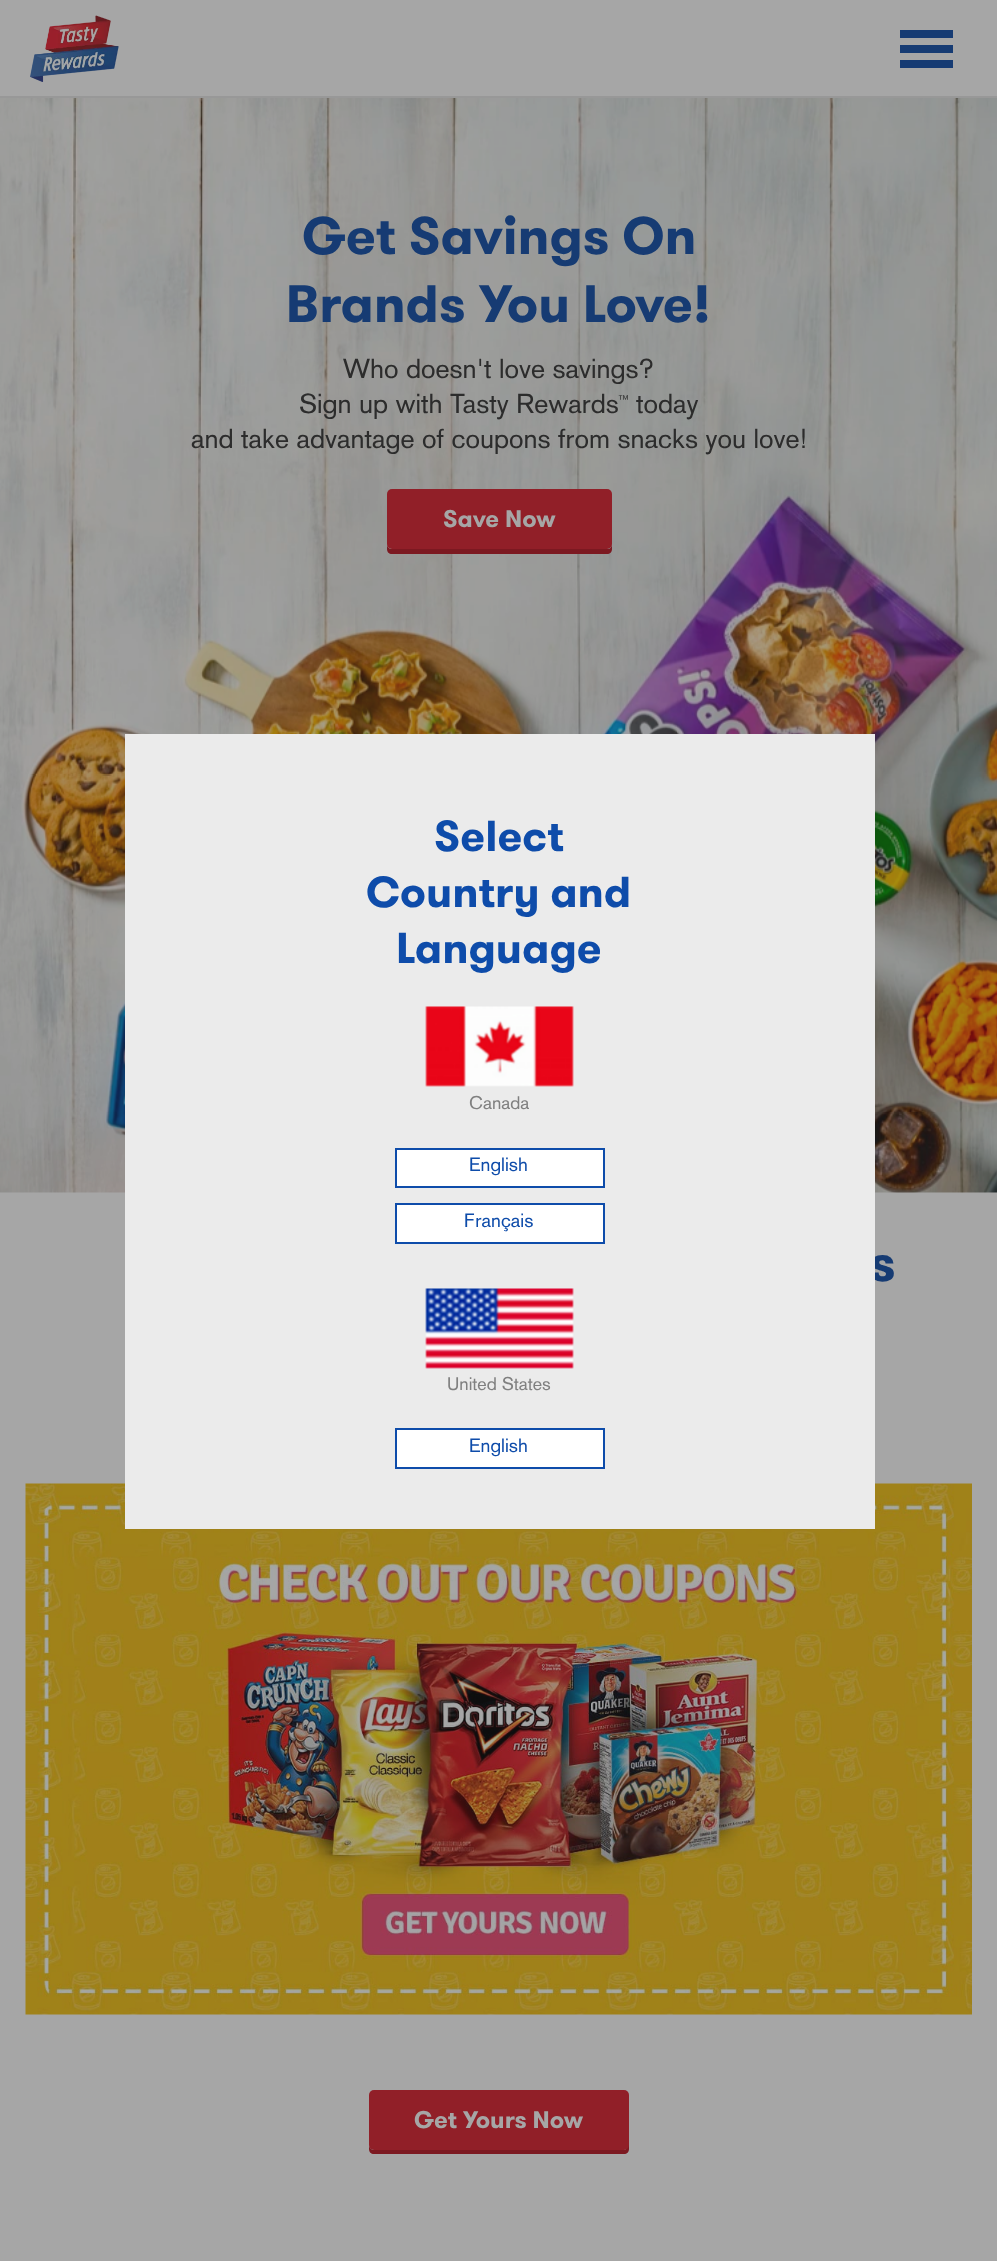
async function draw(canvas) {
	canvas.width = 997;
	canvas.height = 2261;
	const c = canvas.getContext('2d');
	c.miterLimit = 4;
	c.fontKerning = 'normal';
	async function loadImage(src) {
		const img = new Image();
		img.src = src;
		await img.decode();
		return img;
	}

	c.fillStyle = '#a6a6a6';
	c.fillRect(0, 0, 997, 2261);
	c.fillStyle = '#989898';
	c.fillRect(0, 96, 997, 2);
	c.drawImage(await loadImage('img1.png'), 30, 15, 89, 67);
	for (const [x, y, w, h, color] of [
		[900, 30, 53, 8, '#163b73'],
		[900, 45, 53, 8, '#163b73'],
		[900, 60, 53, 8, '#163b73'],
	]) {
		c.fillStyle = color;
		c.fillRect(x, y, w, h);
	}
	c.drawImage(await loadImage('img2.png'), 0, 98, 997, 1095);
	c.font = 'bold 52.5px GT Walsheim';
	c.fillText('Get Savings On', 302, 254);
	c.fillText('Brands You Love!', 286, 322);
	c.font = '27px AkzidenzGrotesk';
	c.fillStyle = '#2c2c2c';
	c.fillText('Who doesn\'t love savings?', 343, 378);
	c.fillText('Sign up with Tasty Rewards', 299, 413);
	c.font = '11px AkzidenzGrotesk';
	c.fillText('™', 618, 403);
	c.font = '27px AkzidenzGrotesk';
	c.fillText('today', 636, 413);
	c.fillText('and take advantage of coupons from snacks you love!', 191, 448);
	c.fillStyle = '#7c1921';
	c.beginPath();
	c.moveTo(387, 544);
	c.lineTo(387, 549);
	c.bezierCurveTo(387, 552, 389, 554, 392, 554);
	c.lineTo(607, 554);
	c.bezierCurveTo(610, 554, 612, 552, 612, 549);
	c.lineTo(612, 544);
	c.bezierCurveTo(612, 547, 610, 549, 608, 549);
	c.lineTo(392, 549);
	c.bezierCurveTo(389, 549, 387, 547, 387, 544);
	c.closePath();
	c.fill();
	c.fillStyle = '#911f28';
	c.beginPath();
	c.roundRect(387, 489, 225, 60, 5);
	c.fill();
	c.font = 'bold 24px GT Walsheim';
	c.fillStyle = '#a6a6a6';
	c.fillText('Save Now', 443, 527);
	c.font = 'bold 52.5px GT Walsheim';
	c.fillStyle = '#163b73';
	c.fillText('s', 869, 1281);
	c.drawImage(await loadImage('img5.png'), 25, 1483, 947, 532);
	c.fillStyle = '#ebebeb';
	c.fillRect(125, 734, 750, 795);
	c.font = 'bold 43.25px GT Walsheim';
	c.fillStyle = '#0e4caa';
	for (const [text, x, y] of [
		['Select', 434, 851],
		['Country and', 366, 907],
		['Language', 396, 963],
	]) {
		c.fillText(text, x, y);
	}
	c.drawImage(await loadImage('img3.png'), 425, 1006, 149, 81);
	c.font = '18px AkzidenzGrotesk';
	c.fillStyle = '#808080';
	c.fillText('Canada', 469, 1109);
	c.fillStyle = '#fff';
	c.beginPath();
	c.rect(396, 1149, 208, 38);
	c.fill();
	c.strokeStyle = '#0e4caa';
	c.lineWidth = 2;
	c.stroke();
	c.font = '19px AkzidenzGrotesk';
	c.fillStyle = '#0e4caa';
	c.fillText('English', 469, 1171);
	c.fillStyle = '#fff';
	c.beginPath();
	c.rect(396, 1204, 208, 39);
	c.fill();
	c.stroke();
	c.fillStyle = '#0e4caa';
	c.fillText('Français', 464, 1227);
	c.drawImage(await loadImage('img4.png'), 425, 1288, 149, 81);
	c.font = '18px AkzidenzGrotesk';
	c.fillStyle = '#808080';
	c.fillText('United States', 447, 1390);
	c.fillStyle = '#fff';
	c.beginPath();
	c.rect(396, 1429, 208, 39);
	c.fill();
	c.stroke();
	c.font = '19px AkzidenzGrotesk';
	c.fillStyle = '#0e4caa';
	c.fillText('English', 469, 1452);
	c.fillStyle = '#7c1921';
	c.beginPath();
	c.moveTo(369, 2145);
	c.lineTo(369, 2149);
	c.bezierCurveTo(369, 2152, 371, 2154, 374, 2154);
	c.lineTo(624, 2154);
	c.bezierCurveTo(627, 2154, 629, 2152, 629, 2149);
	c.lineTo(629, 2099);
	c.lineTo(628, 2097);
	c.lineTo(628, 2145);
	c.bezierCurveTo(628, 2147, 626, 2150, 624, 2150);
	c.lineTo(374, 2150);
	c.bezierCurveTo(371, 2150, 369, 2147, 369, 2145);
	c.closePath();
	c.fill();
	c.fillStyle = '#911f28';
	c.beginPath();
	c.roundRect(369, 2090, 260, 60, 5);
	c.fill();
	c.font = 'bold 24px GT Walsheim';
	c.fillStyle = '#a6a6a6';
	c.fillText('Get Yours Now', 414, 2128);
}

draw(document.querySelector('canvas'));
